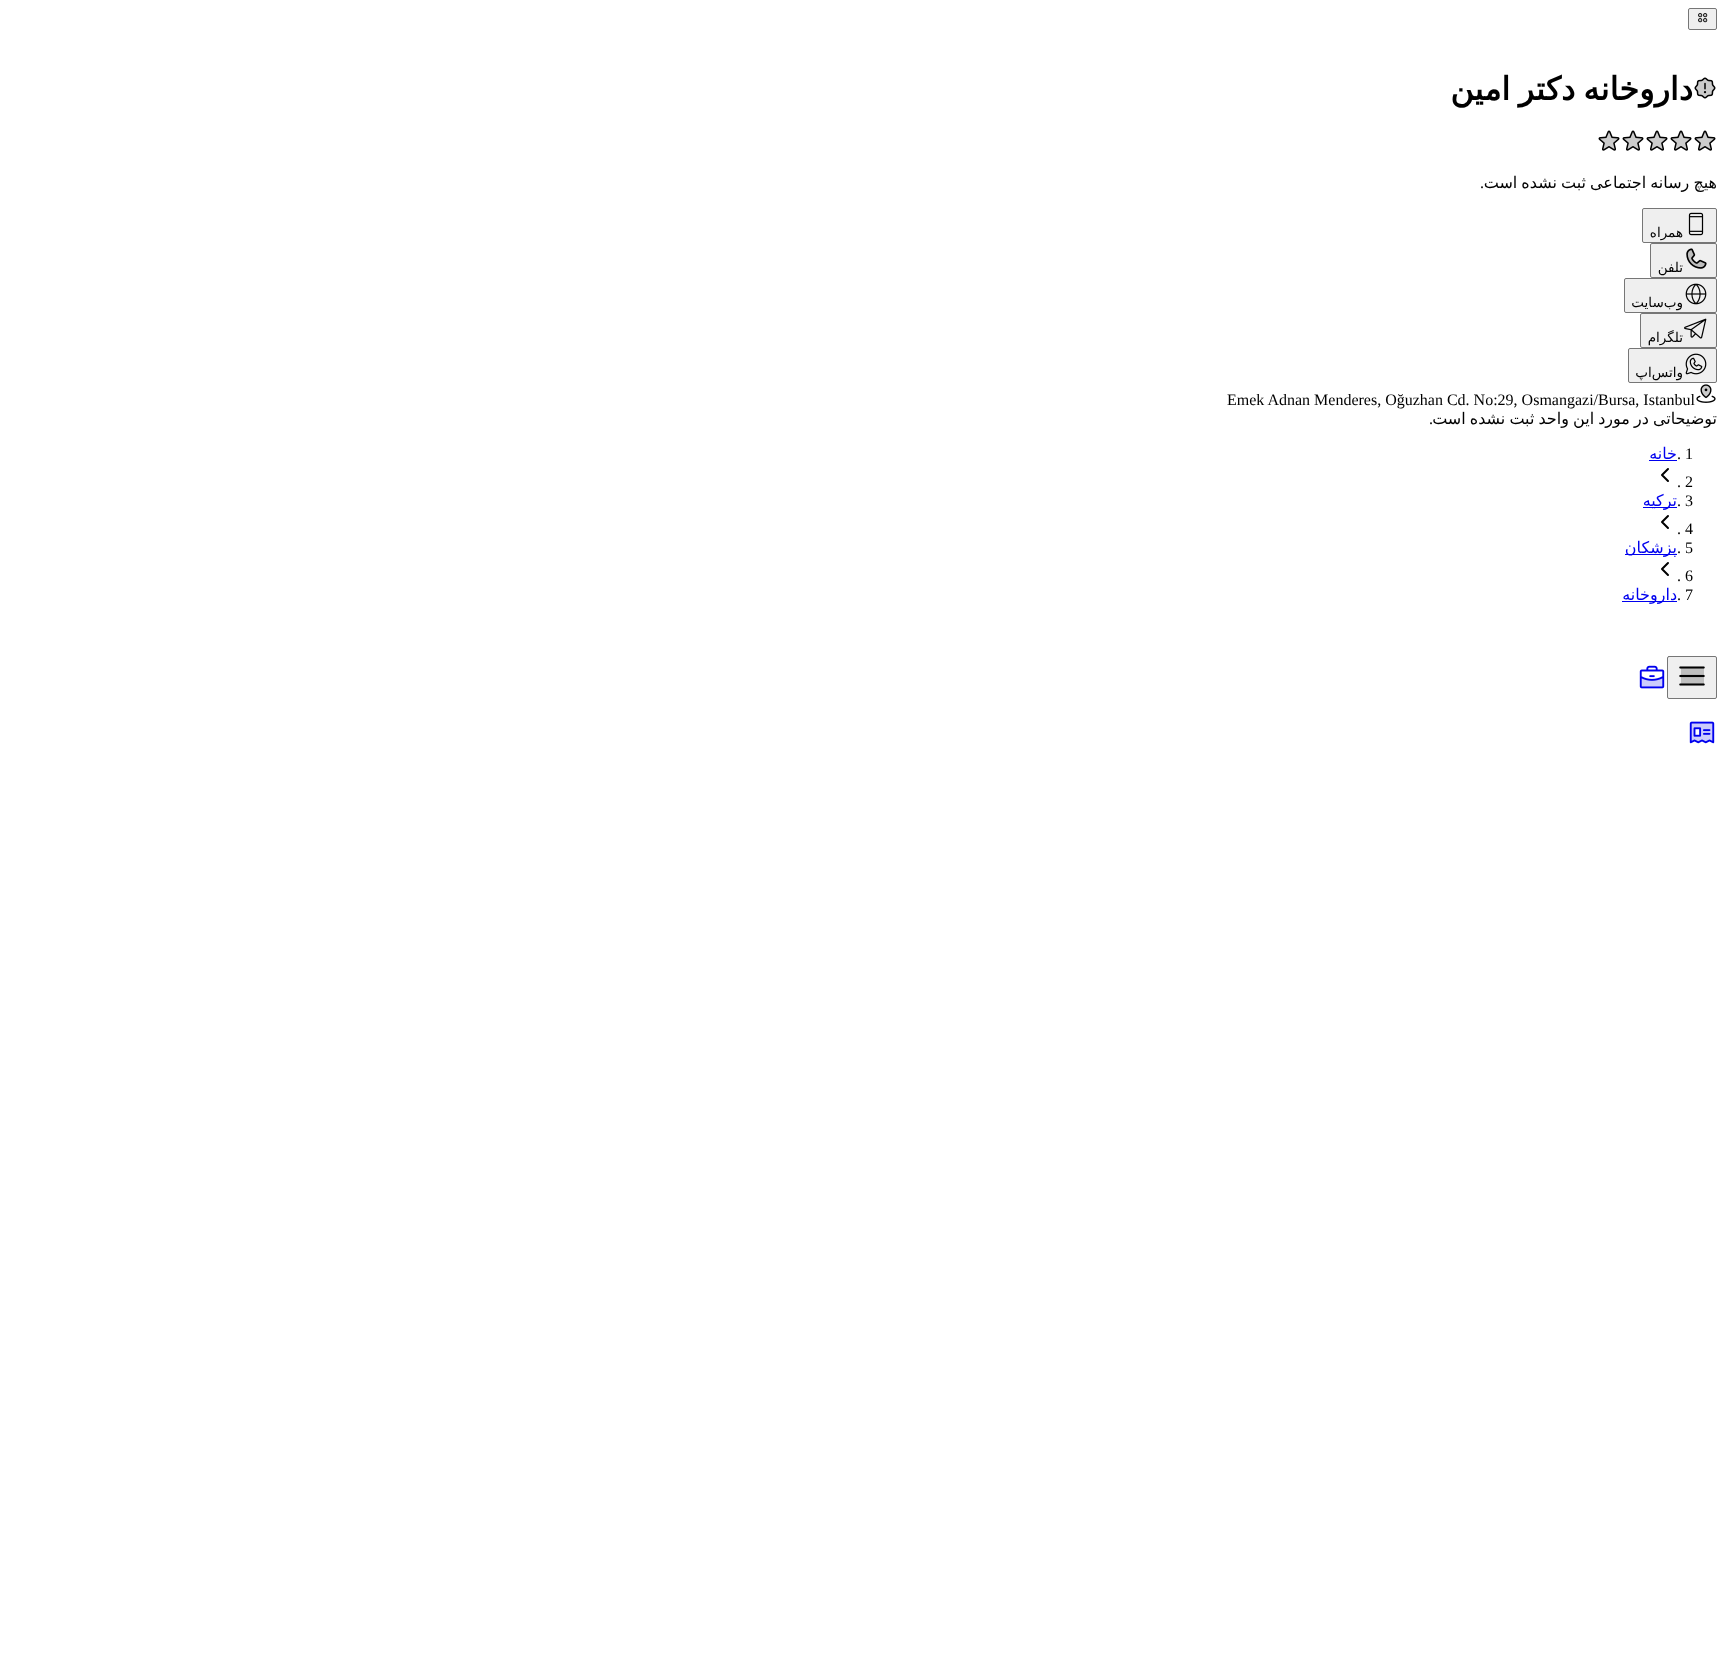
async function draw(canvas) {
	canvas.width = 1725;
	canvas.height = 1680;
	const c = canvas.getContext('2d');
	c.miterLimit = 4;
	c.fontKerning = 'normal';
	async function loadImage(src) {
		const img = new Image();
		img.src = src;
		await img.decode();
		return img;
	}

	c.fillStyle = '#fff';
	c.fillRect(0, 0, 1725, 1680);
	c.fillStyle = '#efefef';
	c.beginPath();
	c.roundRect(1688.5, 8.5, 28, 21, 1.5);
	c.fill();
	c.strokeStyle = '#767676';
	c.stroke();
	c.drawImage(await loadImage('img1.png'), 1698, 13, 10, 10);
	c.wordSpacing = '-2px';
	c.direction = 'rtl';
	c.font = 'bold 32px DejaVu Sans';
	c.fillStyle = '#000';
	c.fillText('داروخانه دکتر امین', 1693, 100);
	c.drawImage(await loadImage('img2.png'), 1694, 77, 22, 22);
	c.drawImage(await loadImage('img3.png'), 1694, 130, 22, 21);
	c.drawImage(await loadImage('img3.png'), 1670, 130, 22, 21);
	c.drawImage(await loadImage('img3.png'), 1646, 130, 22, 21);
	c.drawImage(await loadImage('img3.png'), 1622, 130, 22, 21);
	c.drawImage(await loadImage('img3.png'), 1598, 130, 22, 21);
	c.wordSpacing = '-1px';
	c.font = '16px DejaVu Sans';
	c.fillText('هیچ رسانه اجتماعی ثبت نشده است', 1717, 188);
	c.wordSpacing = '0px';
	c.font = '16px Liberation Serif';
	c.fillText('.', 1484, 188);
	c.fillStyle = '#efefef';
	c.beginPath();
	c.roundRect(1642.5, 208.5, 74, 34, 1.5);
	c.fill();
	c.stroke();
	c.drawImage(await loadImage('img4.png'), 1688, 212, 16, 24);
	c.font = '13.5px DejaVu Sans';
	c.fillStyle = '#000';
	c.fillText('همراه', 1683, 237);
	c.fillStyle = '#efefef';
	c.beginPath();
	c.roundRect(1650.5, 243.5, 66, 34, 1.5);
	c.fill();
	c.stroke();
	c.drawImage(await loadImage('img5.png'), 1686, 248, 21, 21);
	c.fillStyle = '#000';
	c.fillText('تلفن', 1683, 272);
	c.fillStyle = '#efefef';
	c.beginPath();
	c.roundRect(1624.5, 278.5, 92, 34, 1.5);
	c.fill();
	c.stroke();
	c.drawImage(await loadImage('img6.png'), 1685, 283, 22, 22);
	c.fillStyle = '#000';
	c.fillText('وب‌سایت', 1683, 307);
	c.fillStyle = '#efefef';
	c.beginPath();
	c.roundRect(1640.5, 313.5, 76, 34, 1.5);
	c.fill();
	c.stroke();
	c.drawImage(await loadImage('img7.png'), 1684, 318, 23, 21);
	c.fillStyle = '#000';
	c.fillText('تلگرام', 1683, 342);
	c.fillStyle = '#efefef';
	c.beginPath();
	c.roundRect(1628.5, 348.5, 88, 34, 1.5);
	c.fill();
	c.stroke();
	c.drawImage(await loadImage('img8.png'), 1685, 353, 22, 22);
	c.fillStyle = '#000';
	c.fillText('واتس‌اپ', 1683, 377);
	c.drawImage(await loadImage('img9.png'), 1696, 384, 20, 19);
	c.direction = 'ltr';
	c.font = '16px Liberation Serif';
	c.fillText('Emek Adnan Menderes, Oğuzhan Cd. No:29, Osmangazi/Bursa, Istanbul', 1227, 405);
	c.wordSpacing = '-1px';
	c.direction = 'rtl';
	c.font = '16px DejaVu Sans';
	c.fillText('توضیحاتی در مورد این واحد ثبت نشده است', 1717, 424);
	c.wordSpacing = '0px';
	c.font = '16px Liberation Serif';
	c.fillText('.', 1433, 424);
	c.direction = 'ltr';
	c.fillText('. 1', 1677, 459);
	c.direction = 'rtl';
	c.font = '16px DejaVu Sans';
	c.fillStyle = '#00e';
	c.fillText('خانه', 1677, 459);
	c.fillRect(1649, 460, 28, 1);
	c.direction = 'ltr';
	c.font = '16px Liberation Serif';
	c.fillStyle = '#000';
	c.fillText('. 2', 1677, 487);
	c.fillStyle = '#00e';
	c.fillRect(1643, 507, 34, 1);
	c.direction = 'rtl';
	c.font = '16px DejaVu Sans';
	c.fillText('ترکیه', 1677, 506);
	c.beginPath();
	c.moveTo(1668, 481);
	c.lineTo(1662, 475);
	c.lineTo(1668, 469);
	c.moveTo(1668, 528);
	c.lineTo(1662, 522);
	c.lineTo(1668, 516);
	c.strokeStyle = '#000';
	c.lineWidth = 2;
	c.lineCap = 'round';
	c.lineJoin = 'round';
	c.stroke();
	c.direction = 'ltr';
	c.font = '16px Liberation Serif';
	c.fillStyle = '#000';
	for (const [text, x, y] of [
		['. 3', 1677, 506],
		['. 4', 1677, 534],
		['. 5', 1677, 553],
	]) {
		c.fillText(text, x, y);
	}
	c.fillStyle = '#00e';
	c.fillRect(1625, 554, 52, 1);
	c.direction = 'rtl';
	c.font = '16px DejaVu Sans';
	c.fillText('پزشکان', 1677, 553);
	c.direction = 'ltr';
	c.font = '16px Liberation Serif';
	c.fillStyle = '#000';
	c.fillText('. 6', 1677, 581);
	c.beginPath();
	c.moveTo(1668, 575);
	c.lineTo(1662, 569);
	c.lineTo(1668, 563);
	c.stroke();
	c.fillText('. 7', 1677, 600);
	c.fillStyle = '#00e';
	c.fillRect(1622, 601, 55, 1);
	c.direction = 'rtl';
	c.font = '16px DejaVu Sans';
	c.fillText('داروخانه', 1677, 600);
	c.fillStyle = '#efefef';
	c.beginPath();
	c.roundRect(1667.5, 656.5, 49, 42, 1.5);
	c.fill();
	c.strokeStyle = '#767676';
	c.lineWidth = 1;
	c.lineJoin = 'miter';
	c.stroke();
	c.drawImage(await loadImage('img10.png'), 1679, 666, 26, 20);
	c.drawImage(await loadImage('img11.png'), 1639, 665, 26, 24);
	c.drawImage(await loadImage('img12.png'), 1689, 721, 26, 23);
}

draw(document.querySelector('canvas'));
